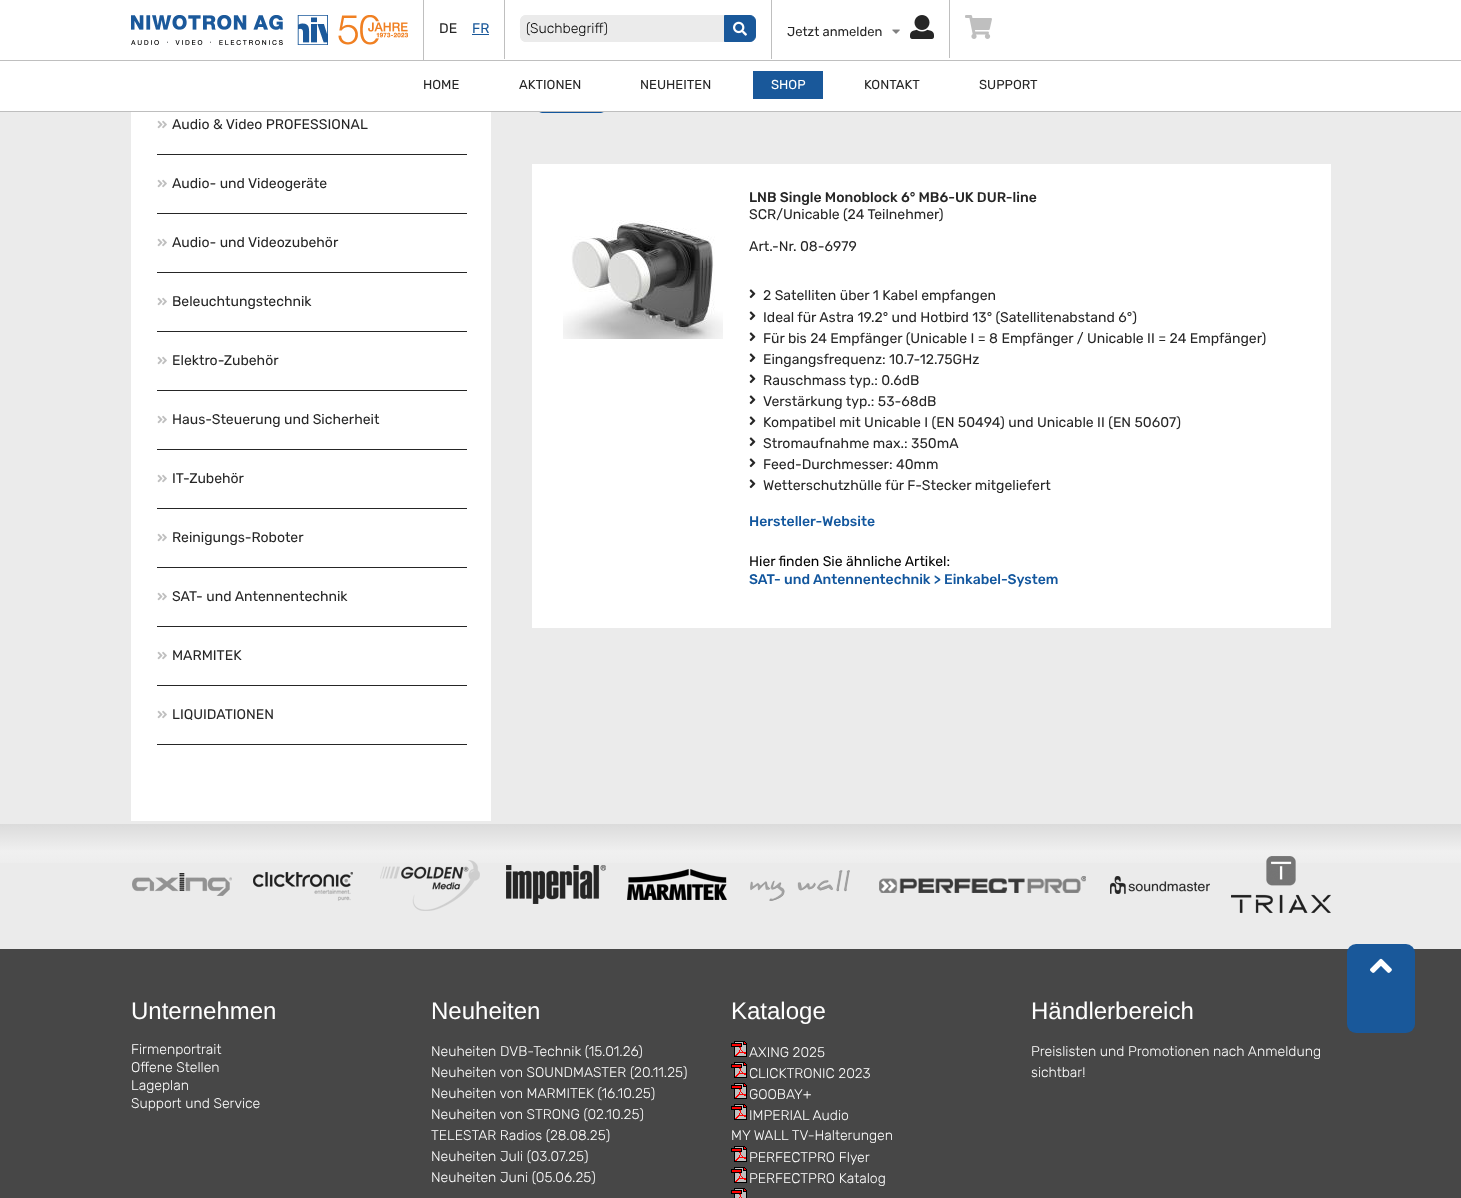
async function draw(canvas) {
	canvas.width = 1461;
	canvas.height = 1198;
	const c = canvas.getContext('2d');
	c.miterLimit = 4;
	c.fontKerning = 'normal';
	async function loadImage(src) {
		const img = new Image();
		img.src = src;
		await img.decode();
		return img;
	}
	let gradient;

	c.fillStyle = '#ebebeb';
	c.fillRect(0, 0, 1461, 1198);
	c.beginPath();
	c.roundRect(538.5, 94.5, 66, 18, 3.5);
	c.strokeStyle = '#13579e';
	c.stroke();
	for (const [x, y, w, h, color] of [
		[0, 111, 1461, 1, '#bebebe'],
		[0, 0, 1461, 60, '#fff'],
		[0, 60, 1461, 1, '#bfbfbf'],
		[423, 0, 1, 60, '#bfbfbf'],
	]) {
		c.fillStyle = color;
		c.fillRect(x, y, w, h);
	}
	c.drawImage(await loadImage('img1.png'), 131, 15, 277, 30);
	c.fillRect(504, 0, 1, 59);
	c.font = '14px Rubik';
	c.fillStyle = '#262626';
	c.fillText('DE', 439, 33);
	c.fillStyle = '#19589a';
	c.fillText('FR', 472, 33);
	c.fillRect(472, 34, 17, 1);
	c.fillStyle = '#bfbfbf';
	c.fillRect(771, 0, 1, 59);
	c.fillStyle = '#ebebeb';
	c.beginPath();
	c.roundRect(520, 15, 207, 27, [6, 0, 0, 6]);
	c.fill();
	c.beginPath();
	c.moveTo(526, 15);
	c.lineTo(727, 15);
	c.lineTo(727, 42);
	c.lineTo(525, 42);
	c.bezierCurveTo(519, 41, 520, 33, 520, 28);
	c.bezierCurveTo(520, 24, 519, 15, 526, 15);
	c.closePath();
	c.moveTo(526, 16);
	c.lineTo(727, 16);
	c.lineTo(727, 41);
	c.lineTo(525, 41);
	c.bezierCurveTo(519, 40, 521, 32, 521, 28);
	c.bezierCurveTo(521, 24, 520, 16, 526, 16);
	c.closePath();
	c.fill('evenodd');
	c.font = '300 14px Rubik';
	c.fillStyle = '#000';
	c.fillText('(Suchbegriff)', 526, 33);
	c.fillStyle = '#19589a';
	c.beginPath();
	c.roundRect(724.5, 15.5, 31, 26, [0, 5.5, 5.5, 0]);
	c.fill();
	c.strokeStyle = '#19589a';
	c.stroke();
	c.drawImage(await loadImage('img2.png'), 733, 21, 14, 15);
	c.fillStyle = '#bfbfbf';
	c.fillRect(949, 0, 1, 58);
	c.font = '13px Rubik';
	c.fillStyle = '#262626';
	c.fillText('Jetzt anmelden', 787, 36);
	c.drawImage(await loadImage('img3.png'), 892, 29, 8, 5);
	c.drawImage(await loadImage('img4.png'), 910, 15, 24, 24);
	c.drawImage(await loadImage('img5.png'), 965, 15, 27, 24);
	c.fillStyle = '#fff';
	c.fillRect(0, 61, 1461, 50);
	c.fillStyle = '#262626';
	for (const [text, x, y] of [
		['HOME', 423, 89],
		['AKTIONEN', 519, 89],
		['NEUHEITEN', 640, 89],
	]) {
		c.fillText(text, x, y);
	}
	c.fillStyle = '#19589a';
	c.fillRect(753, 71, 70, 28);
	c.fillStyle = '#fff';
	c.fillText('SHOP', 771, 89);
	c.fillStyle = '#262626';
	c.fillText('KONTAKT', 864, 89);
	c.fillText('SUPPORT', 979, 89);
	c.fillStyle = '#fff';
	c.fillRect(131, 112, 360, 709);
	c.fillStyle = '#262626';
	c.fillRect(157, 154, 310, 1);
	c.drawImage(await loadImage('img6.png'), 157, 120, 10, 9);
	c.font = '14px Rubik';
	c.fillText('Audio & Video PROFESSIONAL', 172, 129);
	c.fillRect(157, 213, 310, 1);
	c.drawImage(await loadImage('img6.png'), 157, 179, 10, 9);
	c.fillText('Audio- und Videogeräte', 172, 188);
	c.fillRect(157, 272, 310, 1);
	c.drawImage(await loadImage('img6.png'), 157, 238, 10, 9);
	c.fillText('Audio- und Videozubehör', 172, 247);
	c.fillRect(157, 331, 310, 1);
	c.drawImage(await loadImage('img6.png'), 157, 297, 10, 9);
	c.fillText('Beleuchtungstechnik', 172, 306);
	c.fillRect(157, 390, 310, 1);
	c.drawImage(await loadImage('img6.png'), 157, 356, 10, 9);
	c.fillText('Elektro-Zubehör', 172, 365);
	c.fillRect(157, 449, 310, 1);
	c.drawImage(await loadImage('img6.png'), 157, 415, 10, 9);
	c.fillText('Haus-Steuerung und Sicherheit', 172, 424);
	c.fillRect(157, 508, 310, 1);
	c.drawImage(await loadImage('img6.png'), 157, 474, 10, 9);
	c.fillText('IT-Zubehör', 172, 483);
	c.fillRect(157, 567, 310, 1);
	c.drawImage(await loadImage('img6.png'), 157, 533, 10, 9);
	c.fillText('Reinigungs-Roboter', 172, 542);
	c.fillRect(157, 626, 310, 1);
	c.drawImage(await loadImage('img6.png'), 157, 592, 10, 9);
	c.fillText('SAT- und Antennentechnik', 172, 601);
	c.fillRect(157, 685, 310, 1);
	c.drawImage(await loadImage('img6.png'), 157, 651, 10, 9);
	c.fillText('MARMITEK', 172, 660);
	c.fillRect(157, 744, 310, 1);
	c.drawImage(await loadImage('img6.png'), 157, 710, 10, 9);
	c.fillText('LIQUIDATIONEN', 172, 719);
	c.fillStyle = '#fff';
	c.fillRect(532, 164, 799, 464);
	c.drawImage(await loadImage('img7.png'), 563, 220, 160, 119);
	c.font = '500 14px Rubik';
	c.fillStyle = '#262626';
	c.fillText('LNB Single Monoblock 6° MB6-UK DUR-line', 749, 202);
	c.font = '14px Rubik';
	c.fillText('SCR/Unicable (24 Teilnehmer)', 749, 219);
	c.fillText('Art.-Nr. 08-6979', 749, 251);
	c.drawImage(await loadImage('img8.png'), 749, 289, 7, 10);
	c.fillText('2 Satelliten über 1 Kabel empfangen', 763, 300);
	c.drawImage(await loadImage('img8.png'), 749, 311, 7, 10);
	c.fillText('Ideal für Astra 19.2° und Hotbird 13° (Satellitenabstand 6°)', 763, 322);
	c.drawImage(await loadImage('img8.png'), 749, 332, 7, 10);
	c.fillText('Für bis 24 Empfänger (Unicable I = 8 Empfänger / Unicable II = 24 Empfänger)', 763, 343);
	c.drawImage(await loadImage('img8.png'), 749, 353, 7, 10);
	c.fillText('Eingangsfrequenz: 10.7-12.75GHz', 763, 364);
	c.drawImage(await loadImage('img8.png'), 749, 374, 7, 10);
	c.fillText('Rauschmass typ.: 0.6dB', 763, 385);
	c.drawImage(await loadImage('img8.png'), 749, 395, 7, 10);
	c.fillText('Verstärkung typ.: 53-68dB', 763, 406);
	c.drawImage(await loadImage('img8.png'), 749, 416, 7, 10);
	c.fillText('Kompatibel mit Unicable I (EN 50494) und Unicable II (EN 50607)', 763, 427);
	c.drawImage(await loadImage('img8.png'), 749, 437, 7, 10);
	c.fillText('Stromaufnahme max.: 350mA', 763, 448);
	c.drawImage(await loadImage('img8.png'), 749, 458, 7, 10);
	c.fillText('Feed-Durchmesser: 40mm', 763, 469);
	c.drawImage(await loadImage('img8.png'), 749, 479, 7, 10);
	c.fillText('Wetterschutzhülle für F-Stecker mitgeliefert', 763, 490);
	c.font = '500 14px Rubik';
	c.fillStyle = '#13579e';
	c.fillText('Hersteller-Website', 749, 526);
	c.font = '14px Rubik';
	c.fillStyle = '#000';
	c.fillText('Hier finden Sie ähnliche Artikel:', 749, 566);
	c.font = '500 14px Rubik';
	c.fillStyle = '#13579e';
	c.fillText('SAT- und Antennentechnik > Einkabel-System', 749, 584);
	gradient = c.createLinearGradient(731, 824, 731, 949);
	gradient.addColorStop(0, '#dbdbdb');
	gradient.addColorStop(0.22, '#f0f0f0');
	gradient.addColorStop(0.37, '#ececec');
	c.fillStyle = gradient;
	c.fillRect(0, 824, 1461, 39);
	c.drawImage(await loadImage('img9.png'), 132, 856, 1199, 57);
	c.fillStyle = '#474747';
	c.fillRect(0, 949, 1461, 249);
	c.fillStyle = '#19589a';
	c.beginPath();
	c.roundRect(1347, 944, 68, 89, 9);
	c.fill();
	c.drawImage(await loadImage('img10.png'), 1370, 958, 22, 15);
	c.font = '24px Liberation Sans';
	c.fillStyle = '#fff';
	c.fillText('Unternehmen', 131, 1019);
	c.font = '300 14px Rubik';
	for (const [text, x, y] of [
		['Firmenportrait', 131, 1054],
		['Offene Stellen', 131, 1072],
		['Lageplan', 131, 1090],
		['Support und Service', 131, 1108],
	]) {
		c.fillText(text, x, y);
	}
	c.font = '24px Liberation Sans';
	c.fillText('Neuheiten', 431, 1019);
	c.font = '300 14px Rubik';
	for (const [text, x, y] of [
		['Neuheiten DVB-Technik (15.01.26)', 431, 1056],
		['Neuheiten von SOUNDMASTER (20.11.25)', 431, 1077],
		['Neuheiten von MARMITEK (16.10.25)', 431, 1098],
		['Neuheiten von STRONG (02.10.25)', 431, 1119],
		['TELESTAR Radios (28.08.25)', 431, 1140],
		['Neuheiten Juli (03.07.25)', 431, 1161],
		['Neuheiten Juni (05.06.25)', 431, 1182],
	]) {
		c.fillText(text, x, y);
	}
	c.font = '24px Liberation Sans';
	c.fillText('Kataloge', 731, 1019);
	c.drawImage(await loadImage('img11.png'), 731, 1041, 16, 16);
	c.font = '300 14px Rubik';
	c.fillText('AXING 2025', 749, 1057);
	c.drawImage(await loadImage('img11.png'), 731, 1062, 16, 16);
	c.fillText('CLICKTRONIC 2023', 749, 1078);
	c.drawImage(await loadImage('img11.png'), 731, 1083, 16, 16);
	c.fillText('GOOBAY+', 749, 1099);
	c.drawImage(await loadImage('img11.png'), 731, 1104, 16, 16);
	c.fillText('IMPERIAL Audio', 749, 1120);
	c.fillText('MY WALL TV-Halterungen', 731, 1140);
	c.drawImage(await loadImage('img11.png'), 731, 1146, 16, 16);
	c.fillText('PERFECTPRO Flyer', 749, 1162);
	c.drawImage(await loadImage('img11.png'), 731, 1167, 16, 16);
	c.fillText('PERFECTPRO Katalog', 749, 1183);
	c.drawImage(await loadImage('img12.png'), 731, 1188, 16, 10);
	c.font = '24px Liberation Sans';
	c.fillText('Händlerbereich', 1031, 1019);
	c.font = '300 14px Rubik';
	c.fillText('Preislisten und Promotionen nach Anmeldung', 1031, 1056);
	c.fillText('sichtbar!', 1031, 1077);
}

draw(document.querySelector('canvas'));
